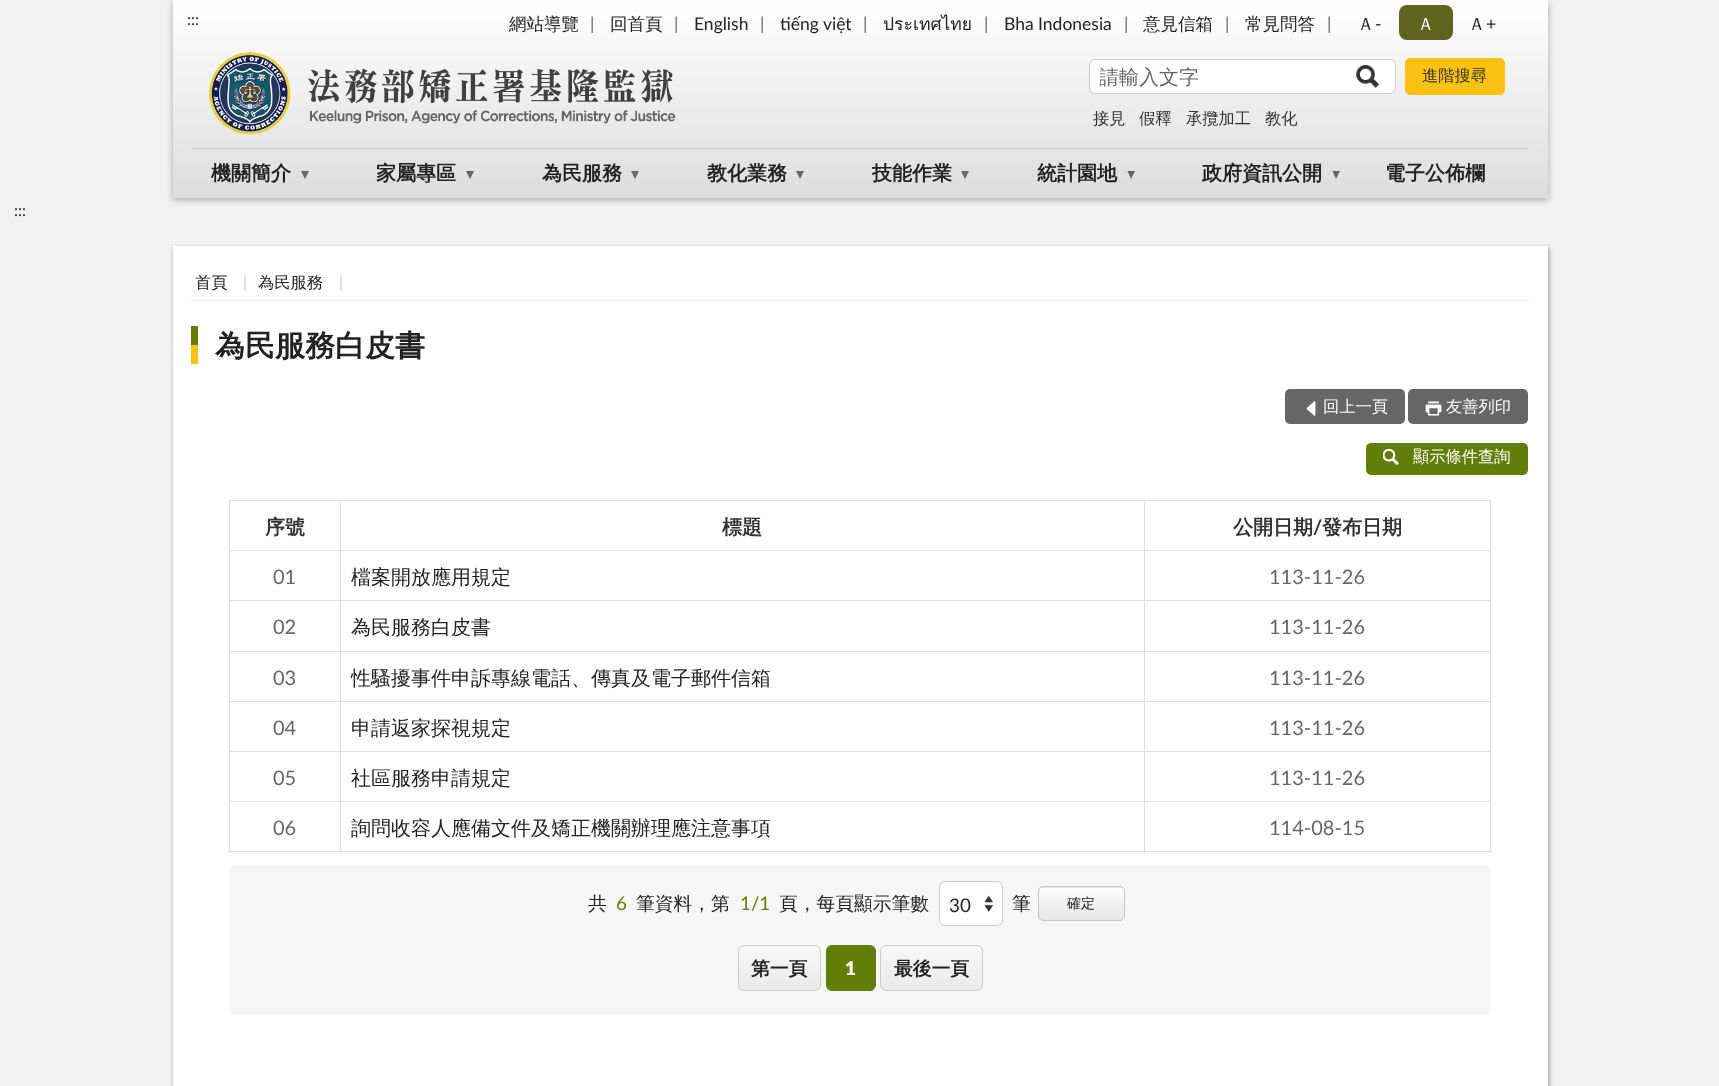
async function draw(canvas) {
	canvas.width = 1719;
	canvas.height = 1086;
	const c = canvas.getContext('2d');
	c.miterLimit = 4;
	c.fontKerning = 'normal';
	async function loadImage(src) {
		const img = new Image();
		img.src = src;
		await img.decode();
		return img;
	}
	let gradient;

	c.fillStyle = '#f1f1f1';
	c.fillRect(0, 0, 1719, 1086);
	c.fillStyle = '#0000004d';
	c.filter = 'blur(3px)';
	c.beginPath();
	c.rect(173, 3, 1375, 197);
	c.fill();
	c.filter = 'none';
	gradient = c.createLinearGradient(860, 0, 860, 198);
	gradient.addColorStop(0, '#fff');
	gradient.addColorStop(1, '#ddd');
	c.fillStyle = gradient;
	c.fillRect(173, 0, 1375, 198);
	c.font = '16px Lato';
	c.fillStyle = '#222';
	c.fillText(':::', 187, 25);
	c.font = '500 17.5px WenQuanYi Zen Hei';
	c.fillText('網站導覽', 509, 30);
	c.font = '17.5px Lato';
	c.fillStyle = '#666';
	c.fillText('|', 590, 30);
	c.font = '500 17.5px WenQuanYi Zen Hei';
	c.fillStyle = '#222';
	c.fillText('回首頁', 610, 30);
	c.font = '17.5px Lato';
	c.fillStyle = '#666';
	c.fillText('|', 674, 30);
	c.fillStyle = '#222';
	c.fillText('English', 694, 30);
	c.fillStyle = '#666';
	c.fillText('|', 760, 30);
	c.fillStyle = '#222';
	c.fillText('tiếng việt', 780, 30);
	c.fillStyle = '#666';
	c.fillText('|', 863, 30);
	c.font = '17.5px Loma';
	c.fillStyle = '#222';
	c.fillText('ประเทศไทย', 883, 30);
	c.font = '17.5px Lato';
	c.fillStyle = '#666';
	c.fillText('|', 984, 30);
	c.fillStyle = '#222';
	c.fillText('Bha Indonesia', 1004, 30);
	c.fillStyle = '#666';
	c.fillText('|', 1124, 30);
	c.font = '500 17.5px WenQuanYi Zen Hei';
	c.fillStyle = '#222';
	c.fillText('意見信箱', 1143, 30);
	c.font = '17.5px Lato';
	c.fillStyle = '#666';
	c.fillText('|', 1225, 30);
	c.font = '500 17.5px WenQuanYi Zen Hei';
	c.fillStyle = '#222';
	c.fillText('常見問答', 1245, 30);
	c.font = '17.5px Lato';
	c.fillStyle = '#666';
	c.fillText('|', 1327, 30);
	c.font = '500 17.5px WenQuanYi Zen Hei';
	c.fillStyle = '#222';
	c.fillText('Ａ', 1357, 30);
	c.font = '17.5px Lato';
	c.fillText('-', 1375, 30);
	c.fillStyle = '#5d641e';
	c.beginPath();
	c.roundRect(1399, 5, 54, 35, 8);
	c.fill();
	c.font = '500 17.5px WenQuanYi Zen Hei';
	c.fillStyle = '#fff';
	c.fillText('Ａ', 1417, 30);
	c.fillStyle = '#222';
	c.fillText('Ａ', 1468, 30);
	c.font = '17.5px Lato';
	c.fillText('+', 1486, 30);
	c.drawImage(await loadImage('img1.png'), 209, 52, 467, 82);
	c.fillStyle = '#fff';
	c.beginPath();
	c.roundRect(1089.5, 59.5, 306, 34, 5.5);
	c.fill();
	c.strokeStyle = '#ccc';
	c.stroke();
	c.save();
	c.beginPath();
	c.rect(1100, 64, 251, 27);
	c.clip();
	c.font = '500 20px WenQuanYi Zen Hei';
	c.fillStyle = '#666';
	c.fillText('請輸入文字', 1099, 84);
	c.restore();
	c.drawImage(await loadImage('img2.png'), 1356, 65, 23, 23);
	c.fillStyle = '#fcc211';
	c.beginPath();
	c.roundRect(1405.5, 58.5, 99, 36, 4.5);
	c.fill();
	c.strokeStyle = '#fcc211';
	c.stroke();
	c.font = '500 16.25px WenQuanYi Zen Hei';
	c.fillStyle = '#333';
	for (const [text, x, y] of [
		['進階搜尋', 1422, 81],
		['接見', 1093, 124],
		['假釋', 1139, 124],
		['承攬加工', 1186, 124],
		['教化', 1265, 124],
	]) {
		c.fillText(text, x, y);
	}
	c.fillStyle = '#ccc';
	c.fillRect(191, 148, 1338, 1);
	c.font = 'bold 20px WenQuanYi Zen Hei';
	c.fillStyle = '#222';
	c.fillText('機關簡介', 211, 180);
	c.fillStyle = '#666';
	c.beginPath();
	c.moveTo(301, 171);
	c.lineTo(309, 171);
	c.lineTo(305, 179);
	c.closePath();
	c.fill();
	c.fillStyle = '#222';
	c.fillText('家屬專區', 376, 180);
	c.fillStyle = '#666';
	c.beginPath();
	c.moveTo(466, 171);
	c.lineTo(474, 171);
	c.lineTo(470, 179);
	c.closePath();
	c.fill();
	c.fillStyle = '#222';
	c.fillText('為民服務', 542, 180);
	c.fillStyle = '#666';
	c.beginPath();
	c.moveTo(631, 171);
	c.lineTo(639, 171);
	c.lineTo(635, 179);
	c.closePath();
	c.fill();
	c.fillStyle = '#222';
	c.fillText('教化業務', 707, 180);
	c.fillStyle = '#666';
	c.beginPath();
	c.moveTo(796, 171);
	c.lineTo(804, 171);
	c.lineTo(800, 179);
	c.closePath();
	c.fill();
	c.fillStyle = '#222';
	c.fillText('技能作業', 872, 180);
	c.fillStyle = '#666';
	c.beginPath();
	c.moveTo(961, 171);
	c.lineTo(969, 171);
	c.lineTo(965, 179);
	c.closePath();
	c.fill();
	c.fillStyle = '#222';
	c.fillText('統計園地', 1037, 180);
	c.fillStyle = '#666';
	c.beginPath();
	c.moveTo(1127.5, 171);
	c.lineTo(1135, 171);
	c.lineTo(1131, 179);
	c.closePath();
	c.fill();
	c.fillStyle = '#222';
	c.fillText('政府資訊公開', 1202, 180);
	c.fillStyle = '#666';
	c.beginPath();
	c.moveTo(1332.5, 171);
	c.lineTo(1340, 171);
	c.lineTo(1336, 179);
	c.closePath();
	c.fill();
	c.fillStyle = '#222';
	c.fillText('電子公佈欄', 1385, 180);
	c.font = '16px Lato';
	c.fillText(':::', 14, 216);
	c.fillStyle = '#00000066';
	c.filter = 'blur(2px)';
	c.beginPath();
	c.rect(174, 248, 1375, 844);
	c.fill();
	c.filter = 'none';
	c.fillStyle = '#fff';
	c.fillRect(173, 246, 1375, 840);
	c.fillStyle = '#eee';
	c.fillRect(191, 300, 1338, 1);
	c.font = '500 16.25px WenQuanYi Zen Hei';
	c.fillStyle = '#222';
	c.fillText('首頁', 195, 288);
	c.font = '16.25px Lato';
	c.fillStyle = '#ccc';
	c.fillText('|', 243, 288);
	c.font = '500 16.25px WenQuanYi Zen Hei';
	c.fillStyle = '#222';
	c.fillText('為民服務', 258, 288);
	c.font = '16.25px Lato';
	c.fillStyle = '#ccc';
	c.fillText('|', 339, 288);
	c.fillStyle = '#637e07';
	c.fillRect(191, 326, 7, 19);
	c.font = 'bold 30px WenQuanYi Zen Hei';
	c.fillStyle = '#222';
	c.fillText('為民服務白皮書', 215, 356);
	c.fillStyle = '#fcc211';
	c.fillRect(191, 345, 7, 19);
	c.fillStyle = '#666';
	c.beginPath();
	c.roundRect(1285, 389, 120, 35, 5);
	c.fill();
	c.drawImage(await loadImage('img3.png'), 1306, 401, 10, 15);
	c.font = '500 16.25px WenQuanYi Zen Hei';
	c.fillStyle = '#fff';
	c.fillText('回上一頁', 1323, 412);
	c.fillStyle = '#666';
	c.beginPath();
	c.roundRect(1408, 389, 120, 35, 5);
	c.fill();
	c.drawImage(await loadImage('img4.png'), 1425, 401, 17, 15);
	c.fillStyle = '#fff';
	c.fillText('友善列印', 1446, 412);
	c.fillStyle = '#637e07';
	c.beginPath();
	c.roundRect(1366, 443, 162, 32, 5);
	c.fill();
	c.drawImage(await loadImage('img5.png'), 1383, 449, 16, 16);
	c.fillStyle = '#fff';
	c.fillText('顯示條件查詢', 1413, 462);
	for (const [x, y, w, h, color] of [
		[1144, 500, 347, 1, '#ddd'],
		[1144, 550, 347, 1, '#ddd'],
		[1144, 600, 347, 1, '#ddd'],
		[1144, 651, 347, 1, '#ddd'],
		[1144, 701, 347, 1, '#ddd'],
		[1144, 751, 347, 1, '#ddd'],
		[1144, 801, 347, 1, '#ddd'],
		[1490, 801, 1, 52, '#ddd'],
		[1144, 851, 347, 1, '#ddd'],
		[1144, 801, 1, 52, '#ddd'],
		[340, 801, 805, 1, '#ddd'],
		[1144, 751, 1, 52, '#ddd'],
		[340, 751, 805, 1, '#ddd'],
		[1144, 701, 1, 52, '#ddd'],
		[340, 701, 805, 1, '#ddd'],
		[1144, 651, 1, 52, '#ddd'],
		[340, 651, 805, 1, '#ddd'],
		[1144, 600, 1, 53, '#ddd'],
		[340, 600, 805, 1, '#ddd'],
		[1144, 550, 1, 51, '#ddd'],
		[340, 550, 805, 1, '#ddd'],
		[1144, 500, 1, 51, '#ddd'],
		[340, 500, 805, 1, '#ddd'],
		[340, 851, 805, 1, '#ddd'],
		[340, 801, 1, 52, '#ddd'],
		[229, 801, 112, 1, '#ddd'],
		[340, 751, 1, 52, '#ddd'],
		[229, 751, 112, 1, '#ddd'],
		[340, 701, 1, 52, '#ddd'],
		[229, 701, 112, 1, '#ddd'],
		[340, 651, 1, 52, '#ddd'],
		[229, 651, 112, 1, '#ddd'],
		[340, 600, 1, 53, '#ddd'],
		[229, 600, 112, 1, '#ddd'],
		[340, 550, 1, 51, '#ddd'],
		[229, 550, 112, 1, '#ddd'],
		[340, 500, 1, 51, '#ddd'],
		[229, 500, 112, 1, '#ddd'],
		[229, 851, 112, 1, '#ddd'],
		[229, 801, 1, 52, '#ddd'],
		[229, 751, 1, 52, '#ddd'],
		[229, 701, 1, 52, '#ddd'],
		[229, 651, 1, 52, '#ddd'],
		[229, 600, 1, 53, '#ddd'],
		[229, 550, 1, 51, '#ddd'],
		[229, 500, 1, 51, '#ddd'],
	]) {
		c.fillStyle = color;
		c.fillRect(x, y, w, h);
	}
	c.font = 'bold 20px WenQuanYi Zen Hei';
	c.fillStyle = '#333';
	c.fillText('序號', 265, 534);
	c.fillText('標題', 722, 534);
	for (const [x, y, w, h, color] of [
		[1490, 751, 1, 52, '#ddd'],
		[1490, 701, 1, 52, '#ddd'],
		[1490, 651, 1, 52, '#ddd'],
		[1490, 600, 1, 53, '#ddd'],
		[1490, 550, 1, 51, '#ddd'],
		[1490, 500, 1, 51, '#ddd'],
	]) {
		c.fillStyle = color;
		c.fillRect(x, y, w, h);
	}
	c.fillStyle = '#333';
	c.fillText('公開日期', 1233, 534);
	c.font = 'bold 20px Lato';
	c.fillText('/', 1313, 534);
	c.font = 'bold 20px WenQuanYi Zen Hei';
	c.fillText('發布日期', 1322, 534);
	c.font = '20px Lato';
	c.fillStyle = '#666';
	c.fillText('01', 273, 584);
	c.font = '500 20px WenQuanYi Zen Hei';
	c.fillStyle = '#222';
	c.fillText('檔案開放應用規定', 351, 584);
	c.font = '20px Lato';
	c.fillStyle = '#666';
	c.fillText('113-11-26', 1269, 584);
	c.fillText('02', 273, 634);
	c.font = '500 20px WenQuanYi Zen Hei';
	c.fillStyle = '#222';
	c.fillText('為民服務白皮書', 351, 634);
	c.font = '20px Lato';
	c.fillStyle = '#666';
	c.fillText('113-11-26', 1269, 634);
	c.fillText('03', 273, 685);
	c.font = '500 20px WenQuanYi Zen Hei';
	c.fillStyle = '#222';
	c.fillText('性騷擾事件申訴專線電話、傳真及電子郵件信箱', 351, 685);
	c.font = '20px Lato';
	c.fillStyle = '#666';
	c.fillText('113-11-26', 1269, 685);
	c.fillText('04', 273, 735);
	c.font = '500 20px WenQuanYi Zen Hei';
	c.fillStyle = '#222';
	c.fillText('申請返家探視規定', 351, 735);
	c.font = '20px Lato';
	c.fillStyle = '#666';
	c.fillText('113-11-26', 1269, 735);
	c.fillText('05', 273, 785);
	c.font = '500 20px WenQuanYi Zen Hei';
	c.fillStyle = '#222';
	c.fillText('社區服務申請規定', 351, 785);
	c.font = '20px Lato';
	c.fillStyle = '#666';
	c.fillText('113-11-26', 1269, 785);
	c.fillText('06', 273, 835);
	c.font = '500 20px WenQuanYi Zen Hei';
	c.fillStyle = '#222';
	c.fillText('詢問收容人應備文件及矯正機關辦理應注意事項', 351, 835);
	c.font = '20px Lato';
	c.fillStyle = '#666';
	c.fillText('114-08-15', 1269, 835);
	c.fillStyle = '#f6f6f6';
	c.beginPath();
	c.roundRect(229, 865, 1262, 150, 8);
	c.fill();
	c.font = '500 18.75px WenQuanYi Zen Hei';
	c.fillStyle = '#222';
	c.fillText('共', 588, 910);
	c.font = '18.75px Lato';
	c.fillStyle = '#637e07';
	c.fillText('6', 616, 910);
	c.font = '500 18.75px WenQuanYi Zen Hei';
	c.fillStyle = '#222';
	c.fillText('筆資料，第', 636, 910);
	c.font = '18.75px Lato';
	c.fillStyle = '#637e07';
	c.fillText('1/1', 740, 910);
	c.font = '500 18.75px WenQuanYi Zen Hei';
	c.fillStyle = '#222';
	c.fillText('頁，每頁顯示筆數', 779, 910);
	c.fillStyle = '#fff';
	c.beginPath();
	c.roundRect(939, 881, 64, 45, 6);
	c.fill();
	c.drawImage(await loadImage('img6.png'), 984, 895, 9, 17);
	c.beginPath();
	c.roundRect(939.5, 881.5, 63, 44, 5.5);
	c.strokeStyle = '#ccc';
	c.stroke();
	c.font = '18.75px Lato';
	c.fillStyle = '#222';
	c.fillText('30', 949, 912);
	c.font = '500 18.75px WenQuanYi Zen Hei';
	c.fillText('筆', 1012, 910);
	c.save();
	c.beginPath();
	c.roundRect(1038, 886, 87, 35, 5);
	c.clip();
	gradient = c.createLinearGradient(1081, 855, 1081, 888);
	gradient.addColorStop(0, '#fcfcfc');
	gradient.addColorStop(1, '#e6e6e6');
	c.fillStyle = gradient;
	c.fillRect(1038, 886, 87, 2);
	gradient = c.createLinearGradient(1081, 888, 1081, 920);
	gradient.addColorStop(0, '#fcfcfc');
	gradient.addColorStop(1, '#e6e6e6');
	c.fillStyle = gradient;
	c.fillRect(1038, 888, 87, 32);
	c.restore();
	c.beginPath();
	c.roundRect(1038.5, 886.5, 86, 34, 4.5);
	c.strokeStyle = '#c4c4c4';
	c.stroke();
	c.font = '500 14px WenQuanYi Zen Hei';
	c.fillText('確定', 1067, 908);
	c.save();
	c.beginPath();
	c.roundRect(738, 945, 83, 46, 6);
	c.clip();
	gradient = c.createLinearGradient(779, 946, 779, 990);
	gradient.addColorStop(0, '#f7f7f7');
	gradient.addColorStop(1, '#eaeaea');
	c.fillStyle = gradient;
	c.fillRect(738, 946, 83, 44);
	c.restore();
	c.beginPath();
	c.roundRect(738.5, 945.5, 82, 45, 5.5);
	c.strokeStyle = '#ccc';
	c.stroke();
	c.font = 'bold 18.75px WenQuanYi Zen Hei';
	c.fillText('第一頁', 751, 975);
	c.fillStyle = '#637e07';
	c.beginPath();
	c.roundRect(826.5, 945.5, 49, 45, 5.5);
	c.fill();
	c.strokeStyle = '#637e07';
	c.stroke();
	c.font = '800 18.75px Lato';
	c.fillStyle = '#fff';
	c.fillText('1', 845, 975);
	c.save();
	c.beginPath();
	c.roundRect(880, 945, 103, 46, 6);
	c.clip();
	gradient = c.createLinearGradient(931, 946, 931, 990);
	gradient.addColorStop(0, '#f7f7f7');
	gradient.addColorStop(1, '#eaeaea');
	c.fillStyle = gradient;
	c.fillRect(880, 946, 103, 44);
	c.restore();
	c.beginPath();
	c.roundRect(880.5, 945.5, 102, 45, 5.5);
	c.strokeStyle = '#ccc';
	c.stroke();
	c.font = 'bold 18.75px WenQuanYi Zen Hei';
	c.fillStyle = '#222';
	c.fillText('最後一頁', 894, 975);
}

draw(document.querySelector('canvas'));
